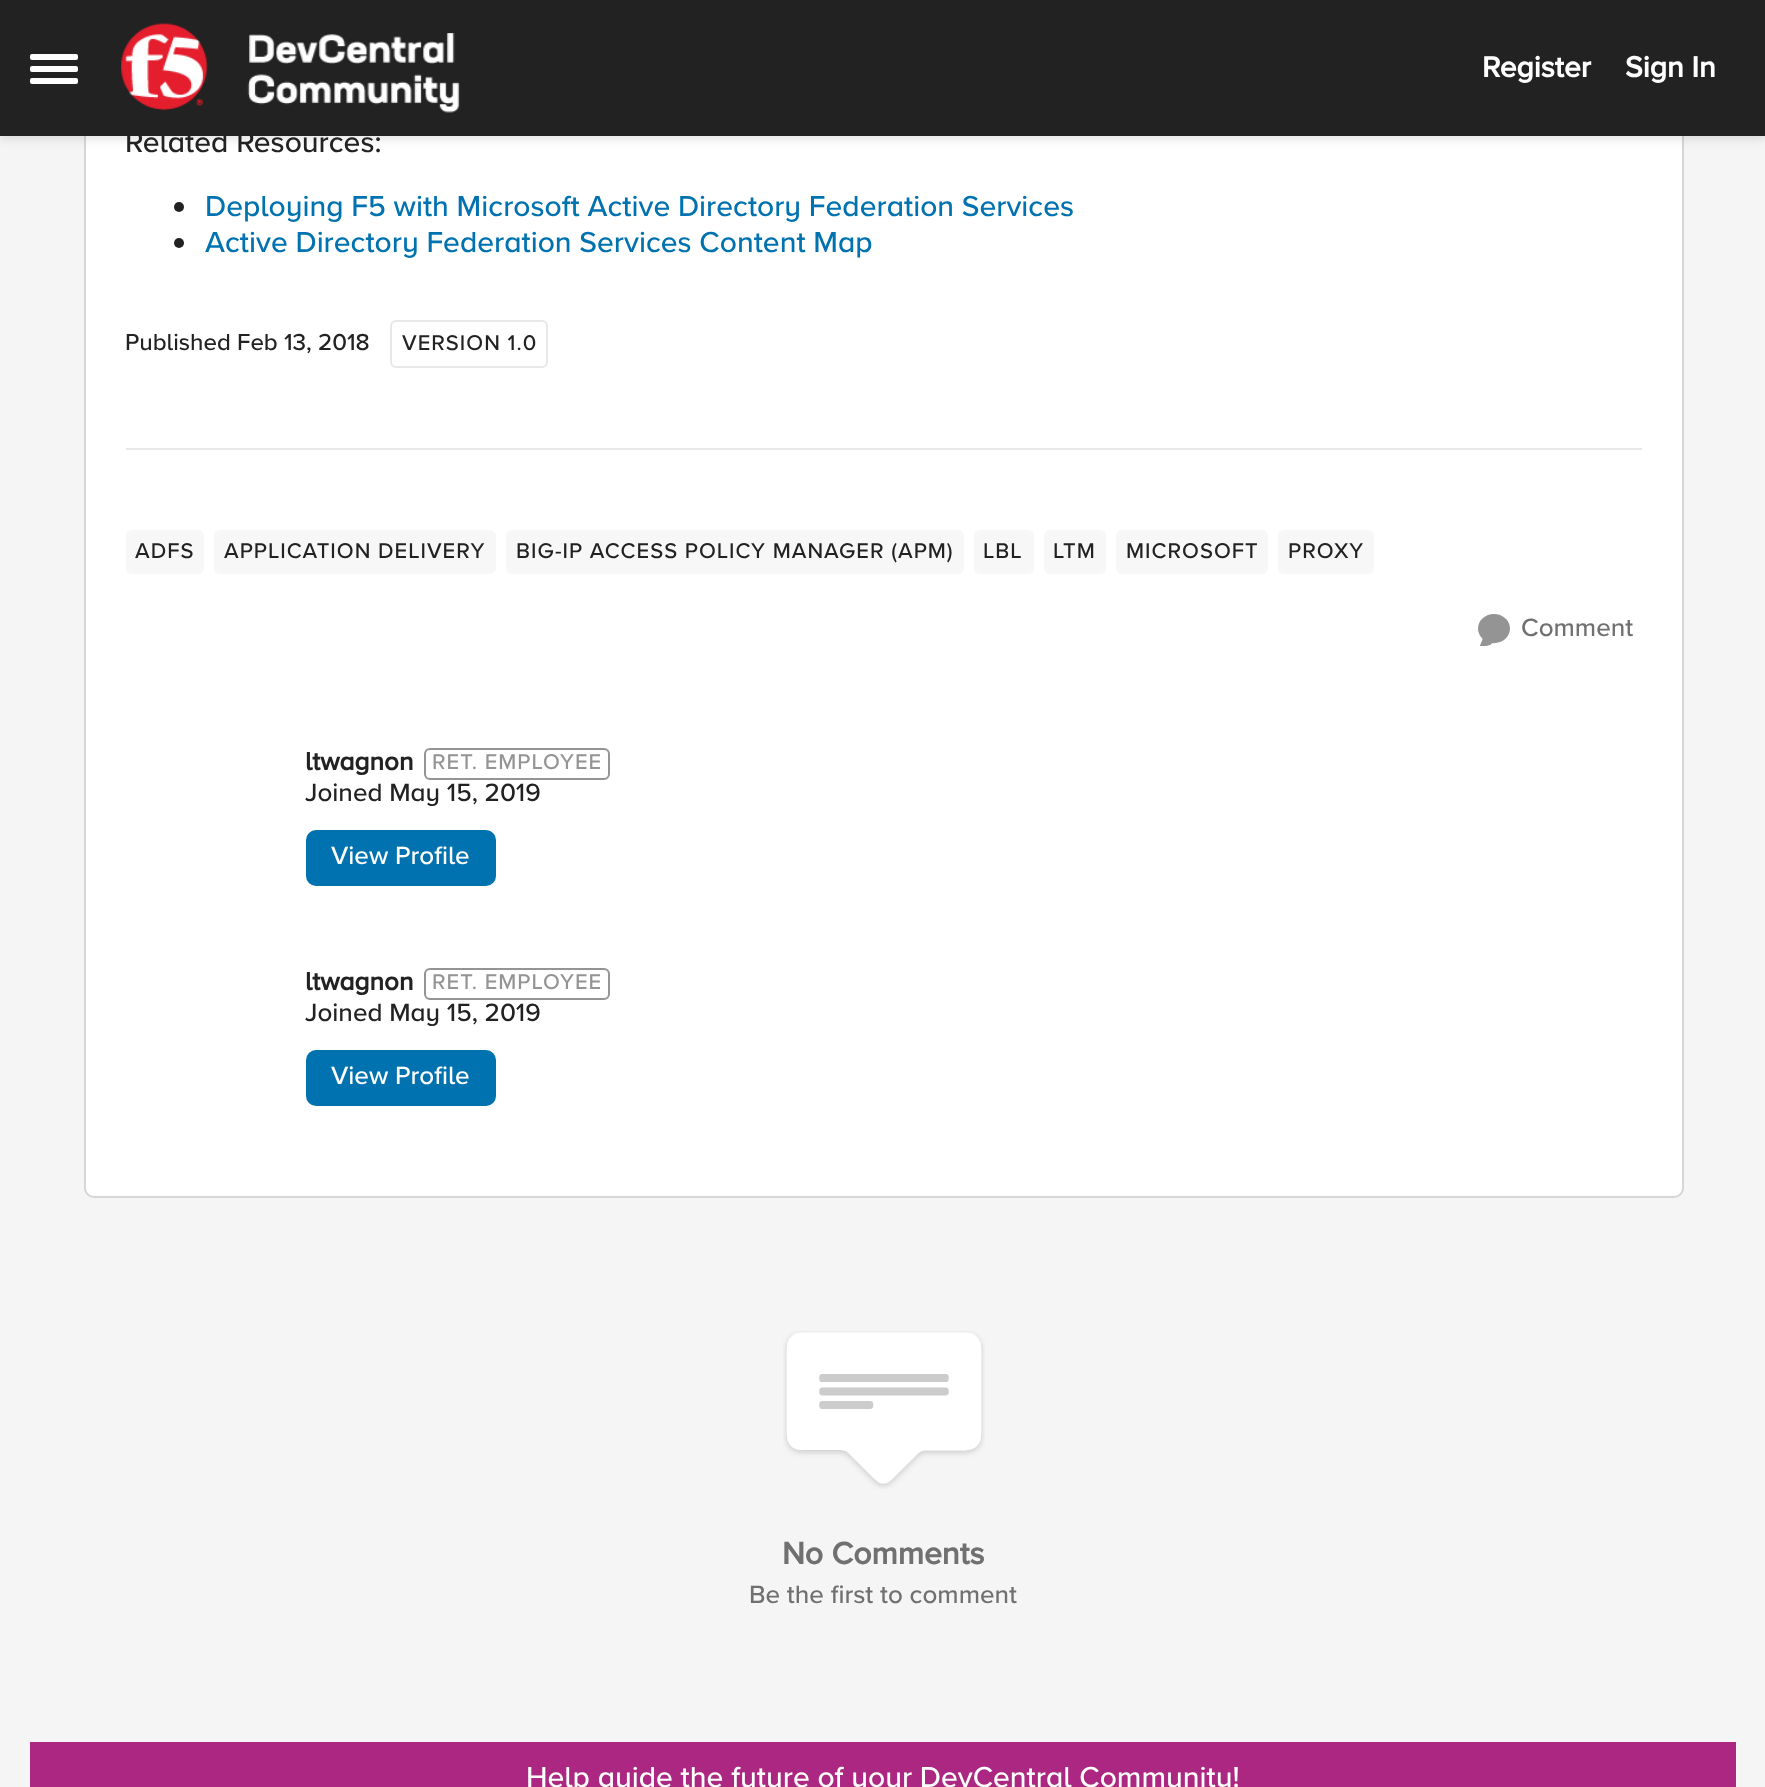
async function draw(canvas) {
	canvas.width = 1765;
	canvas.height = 1787;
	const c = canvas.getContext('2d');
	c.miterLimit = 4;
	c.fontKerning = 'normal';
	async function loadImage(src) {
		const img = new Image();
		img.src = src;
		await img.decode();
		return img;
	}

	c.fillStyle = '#f5f5f5';
	c.fillRect(0, 0, 1765, 1787);
	c.fillStyle = '#fff';
	c.beginPath();
	c.roundRect(84, -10, 1600, 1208, 10);
	c.fill();
	c.beginPath();
	c.roundRect(85, -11, 1598, 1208, 9);
	c.strokeStyle = '#00000029';
	c.lineWidth = 2;
	c.stroke();
	c.fillStyle = '#3333331f';
	c.filter = 'blur(4px)';
	c.beginPath();
	c.rect(0, 4, 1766, 136);
	c.fill();
	c.filter = 'none';
	c.fillStyle = '#222';
	c.fillRect(0, 0, 1765, 136);
	c.fillStyle = '#fff';
	c.beginPath();
	c.roundRect(30, 54, 48, 6, 2);
	c.fill();
	c.beginPath();
	c.roundRect(30, 66, 48, 6, 2);
	c.fill();
	c.beginPath();
	c.roundRect(30, 78, 48, 6, 2);
	c.fill();
	c.drawImage(await loadImage('img1.png'), 121, 23, 339, 90);
	c.font = 'bold 30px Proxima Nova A';
	c.fillText('Register', 1482, 77);
	c.fillText('Sign In', 1625, 77);
	c.font = '500 30px Proxima Nova A';
	c.fillStyle = '#222';
	c.fillText('Related Resources:', 125, 152);
	c.beginPath();
	c.arc(179, 207, 5, 0, 2 * Math.PI);
	c.fill();
	c.fillStyle = '#0072b0';
	c.fillText('Deploying F5 with Microsoft Active Directory Federation Services', 205, 216);
	c.fillStyle = '#222';
	c.beginPath();
	c.arc(179, 243, 5, 0, 2 * Math.PI);
	c.fill();
	c.fillStyle = '#0072b0';
	c.fillText('Active Directory Federation Services Content Map', 205, 252);
	c.font = '500 24px Proxima Nova A';
	c.fillStyle = '#222';
	c.fillText('Published Feb 13, 2018', 125, 350);
	c.beginPath();
	c.roundRect(391, 321, 156, 46, 5);
	c.strokeStyle = '#e8e8e8';
	c.stroke();
	c.letterSpacing = '1px';
	c.font = '500 22px Proxima Nova A';
	c.fillText('VERSION 1.0', 402, 350);
	c.fillStyle = '#e8e8e8';
	c.fillRect(126, 448, 1516, 2);
	c.fillStyle = '#f7f7f7';
	c.beginPath();
	c.roundRect(126, 530, 78, 44, 6);
	c.fill();
	c.fillStyle = '#222';
	c.fillText('ADFS', 135, 558);
	c.fillStyle = '#f7f7f7';
	c.beginPath();
	c.roundRect(214, 530, 282, 44, 6);
	c.fill();
	c.fillStyle = '#222';
	c.fillText('APPLICATION DELIVERY', 224, 558);
	c.fillStyle = '#f7f7f7';
	c.beginPath();
	c.roundRect(506, 530, 458, 44, 6);
	c.fill();
	c.fillStyle = '#222';
	c.fillText('BIG-IP ACCESS POLICY MANAGER (APM)', 516, 558);
	c.fillStyle = '#f7f7f7';
	c.beginPath();
	c.roundRect(974, 530, 60, 44, 6);
	c.fill();
	c.fillStyle = '#222';
	c.fillText('LBL', 983, 558);
	c.fillStyle = '#f7f7f7';
	c.beginPath();
	c.roundRect(1044, 530, 62, 44, 6);
	c.fill();
	c.fillStyle = '#222';
	c.fillText('LTM', 1053, 558);
	c.fillStyle = '#f7f7f7';
	c.beginPath();
	c.roundRect(1116, 530, 152, 44, 6);
	c.fill();
	c.fillStyle = '#222';
	c.fillText('MICROSOFT', 1126, 558);
	c.fillStyle = '#f7f7f7';
	c.beginPath();
	c.roundRect(1278, 530, 96, 44, 6);
	c.fill();
	c.fillStyle = '#222';
	c.fillText('PROXY', 1288, 558);
	c.drawImage(await loadImage('img2.png'), 1478, 614, 32, 32);
	c.letterSpacing = '0px';
	c.font = '500 26px Proxima Nova A';
	c.fillStyle = '#707070';
	c.fillText('Comment', 1521, 636);
	c.font = 'bold 26px Proxima Nova A';
	c.fillStyle = '#222';
	c.fillText('ltwagnon', 305, 770);
	c.beginPath();
	c.roundRect(425, 749, 184, 30, 5);
	c.strokeStyle = '#949494';
	c.stroke();
	c.letterSpacing = '1px';
	c.font = '500 22px Proxima Nova A';
	c.fillStyle = '#949494';
	c.fillText('RET. EMPLOYEE', 432, 769);
	c.letterSpacing = '0px';
	c.font = '500 26px Proxima Nova A';
	c.fillStyle = '#222';
	c.fillText('Joined May 15, 2019', 305, 801);
	c.fillStyle = '#0072b0';
	c.beginPath();
	c.roundRect(306, 830, 190, 56, 10);
	c.fill();
	c.fillStyle = '#fff';
	c.fillText('View Profile', 331, 864);
	c.font = 'bold 26px Proxima Nova A';
	c.fillStyle = '#222';
	c.fillText('ltwagnon', 305, 990);
	c.beginPath();
	c.roundRect(425, 969, 184, 30, 5);
	c.stroke();
	c.letterSpacing = '1px';
	c.font = '500 22px Proxima Nova A';
	c.fillStyle = '#949494';
	c.fillText('RET. EMPLOYEE', 432, 989);
	c.letterSpacing = '0px';
	c.font = '500 26px Proxima Nova A';
	c.fillStyle = '#222';
	c.fillText('Joined May 15, 2019', 305, 1021);
	c.fillStyle = '#0072b0';
	c.beginPath();
	c.roundRect(306, 1050, 190, 56, 10);
	c.fill();
	c.fillStyle = '#fff';
	c.fillText('View Profile', 331, 1084);
	c.drawImage(await loadImage('img3.png'), 783, 1331, 202, 158);
	c.font = 'bold 32px Proxima Nova A';
	c.fillStyle = '#707070';
	c.fillText('No Comments', 782, 1564);
	c.font = '500 26px Proxima Nova A';
	c.fillText('Be the first to comment', 749, 1603);
	c.fillStyle = '#ab2782';
	c.fillRect(30, 1742, 1706, 45);
	c.font = '500 30px Proxima Nova A';
	c.fillStyle = '#fff';
	c.fillText('Help guide the future of your DevCentral Community!', 526, 1787);
}

draw(document.querySelector('canvas'));
